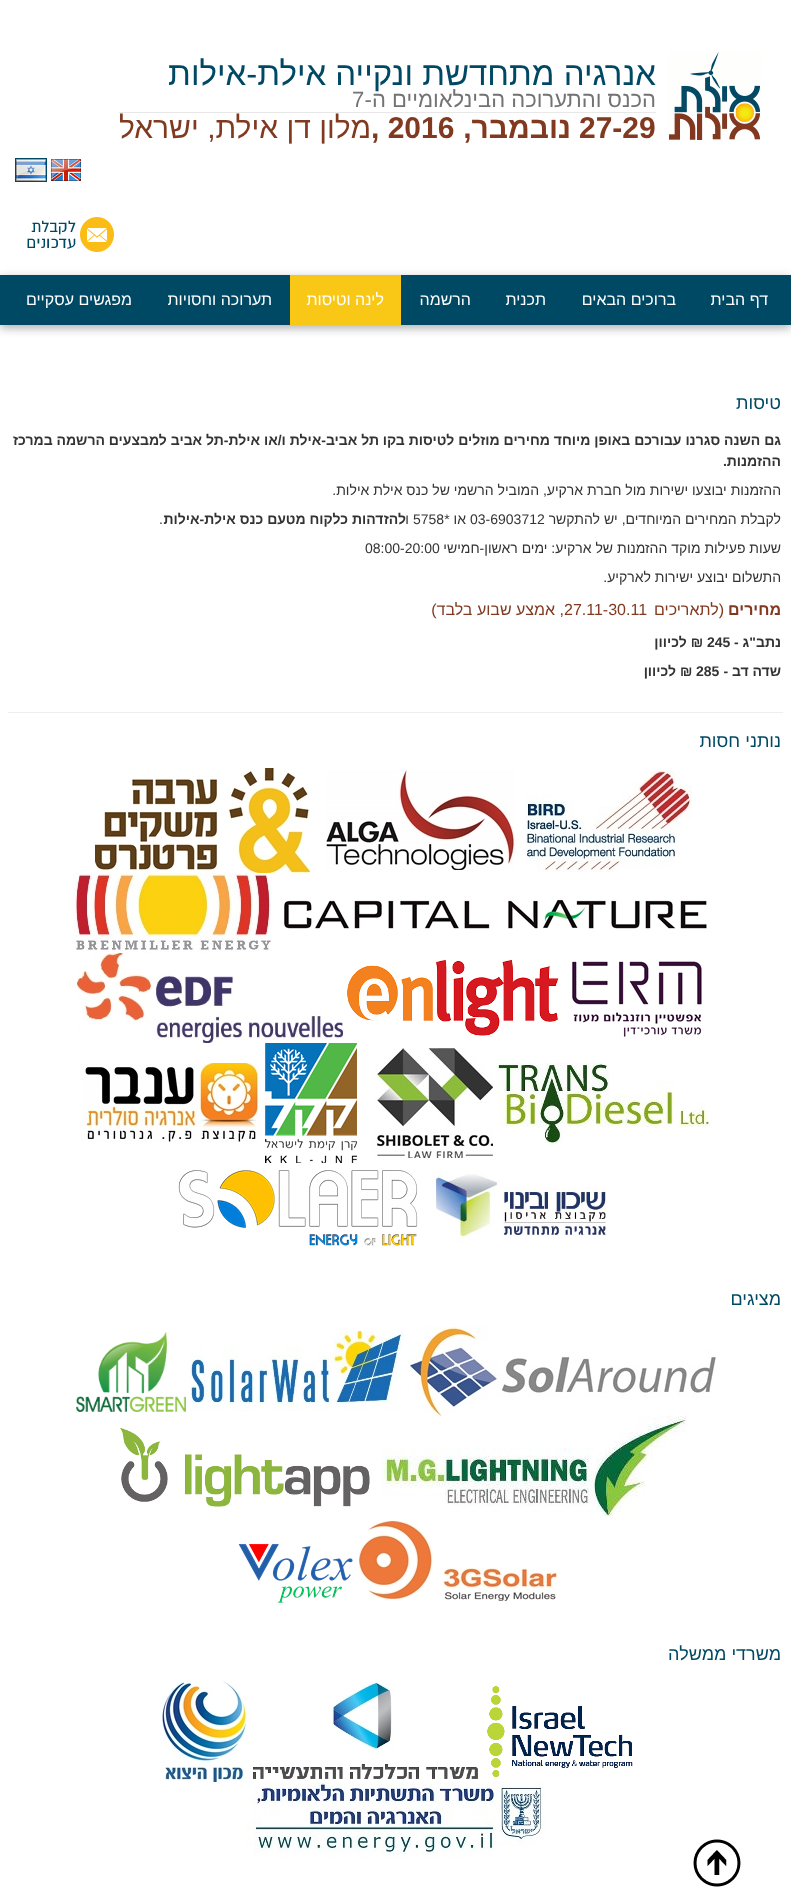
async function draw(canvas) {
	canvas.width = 791;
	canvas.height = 1903;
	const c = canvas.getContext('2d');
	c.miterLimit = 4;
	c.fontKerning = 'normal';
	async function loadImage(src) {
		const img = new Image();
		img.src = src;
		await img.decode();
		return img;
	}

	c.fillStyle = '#fff';
	c.fillRect(0, 0, 791, 1903);
	c.drawImage(await loadImage('img1.png'), 668, 52, 93, 88);
	c.direction = 'rtl';
	c.font = '33px Liberation Sans';
	c.fillStyle = '#004964';
	c.fillText('אנרגיה מתחדשת ונקייה אילת-אילות', 656, 85);
	c.font = '22px Liberation Sans';
	c.fillStyle = '#737373';
	c.fillText('הכנס והתערוכה הבינלאומיים ה-', 656, 107);
	c.direction = 'ltr';
	c.fillText('7', 352, 107);
	c.fillStyle = '#e8e8e8';
	c.fillRect(119, 112, 537, 1);
	c.font = 'bold 30px Liberation Sans';
	c.fillStyle = '#813920';
	c.fillText('27-29', 579, 138);
	c.direction = 'rtl';
	c.fillText('נובמבר,', 571, 138);
	c.direction = 'ltr';
	c.fillText(', 2016', 371, 138);
	c.direction = 'rtl';
	c.font = '30px Liberation Sans';
	c.fillText('מלון דן אילת, ישראל', 371, 138);
	c.strokeStyle = '#004964';
	c.strokeRect(15.5, 158.5, 31, 23);
	c.drawImage(await loadImage('img2.png'), 51, 159, 30, 22);
	c.drawImage(await loadImage('img3.png'), 16, 159, 30, 22);
	c.drawImage(await loadImage('img4.png'), 27, 217, 87, 35);
	c.fillStyle = '#aeaeae';
	c.filter = 'blur(5px)';
	c.beginPath();
	c.rect(0, 278, 791, 50);
	c.fill();
	c.filter = 'none';
	c.fillStyle = '#004964';
	c.fillRect(0, 275, 791, 50);
	c.font = '16px Liberation Sans';
	c.fillStyle = '#fff';
	for (const [text, x, y] of [
		['דף הבית', 768, 305],
		['ברוכים הבאים', 676, 305],
		['תכנית', 546, 305],
		['הרשמה', 471, 305],
	]) {
		c.fillText(text, x, y);
	}
	c.fillStyle = '#f9c816';
	c.fillRect(290, 275, 111, 50);
	c.fillStyle = '#fff';
	for (const [text, x, y] of [
		['לינה וטיסות', 384, 305],
		['תערוכה וחסויות', 272, 305],
		['מפגשים עסקיים', 132, 305],
	]) {
		c.fillText(text, x, y);
	}
	c.font = '18px Liberation Sans';
	c.fillStyle = '#004964';
	c.fillText('טיסות', 781, 409);
	c.font = 'bold 14px Liberation Sans';
	c.fillStyle = '#333';
	for (const [text, x, y] of [
		['גם השנה סגרנו עבורכם באופן מיוחד מחירים מוזלים לטיסות בקו', 781, 445],
		['תל אביב-אילת ו/או אילת-תל אביב למבצעים הרשמה במרכז', 379, 445],
		['ההזמנות.', 781, 466],
	]) {
		c.fillText(text, x, y);
	}
	c.font = '14px Liberation Sans';
	c.fillText('ההזמנות יבוצעו ישירות מול חברת ארקיע, המוביל הרשמי של כנס אילת אילות.', 781, 495);
	c.fillText('לקבלת המחירים המיוחדים, יש להתקשר', 781, 524);
	c.direction = 'ltr';
	c.fillText('03-6903712', 470, 524);
	c.direction = 'rtl';
	c.fillText('או *', 466, 524);
	c.direction = 'ltr';
	c.fillText('5758', 413, 524);
	c.direction = 'rtl';
	c.fillText('ו', 409, 524);
	c.font = 'bold 14px Liberation Sans';
	c.fillText('להזדהות כלקוח מטעם כנס אילת-אילות', 406, 524);
	c.direction = 'ltr';
	c.font = '14px Liberation Sans';
	c.fillText('.', 159, 524);
	c.direction = 'rtl';
	c.fillText('שעות פעילות מוקד ההזמנות של ארקיע: ימים ראשון-חמישי', 781, 553);
	c.direction = 'ltr';
	c.fillText('08:00-20:00', 365, 553);
	c.direction = 'rtl';
	c.fillText('התשלום יבוצע ישירות לארקיע.', 781, 582);
	c.font = 'bold 16px Liberation Sans';
	c.fillStyle = '#813920';
	c.fillText('מחירים', 781, 615);
	c.font = '16px Liberation Sans';
	c.fillText('(לתאריכים', 724, 615);
	c.direction = 'ltr';
	c.fillText('27.11-30.11', 564, 615);
	c.direction = 'rtl';
	c.fillText(', אמצע שבוע בלבד)', 564, 615);
	c.font = 'bold 14px Liberation Sans';
	c.fillStyle = '#333';
	c.fillText('נתב"ג -', 781, 647);
	c.direction = 'ltr';
	c.fillText('245', 707, 647);
	c.direction = 'rtl';
	c.fillText('₪ לכיוון', 703, 647);
	c.fillText('שדה דב -', 781, 676);
	c.direction = 'ltr';
	c.fillText('285', 696, 676);
	c.fillText('₪', 680, 676);
	c.direction = 'rtl';
	c.fillText('לכיוון', 676, 676);
	c.fillStyle = '#eee';
	c.fillRect(8, 712, 775, 1);
	c.font = '18px Liberation Sans';
	c.fillStyle = '#004964';
	c.fillText('נותני חסות', 781, 747);
	c.drawImage(await loadImage('img5.png'), 525, 770, 167, 102);
	c.drawImage(await loadImage('img6.png'), 326, 770, 189, 100);
	c.drawImage(await loadImage('img7.png'), 95, 768, 215, 105);
	c.drawImage(await loadImage('img8.png'), 284, 899, 423, 30);
	c.drawImage(await loadImage('img9.png'), 73, 873, 199, 80);
	c.drawImage(await loadImage('img10.png'), 572, 961, 130, 76);
	c.drawImage(await loadImage('img11.png'), 347, 960, 212, 76);
	c.drawImage(await loadImage('img12.png'), 77, 953, 266, 90);
	c.drawImage(await loadImage('img13.png'), 497, 1063, 213, 80);
	c.drawImage(await loadImage('img14.png'), 364, 1048, 129, 110);
	c.drawImage(await loadImage('img15.png'), 265, 1043, 92, 120);
	c.drawImage(await loadImage('img16.png'), 81, 1063, 180, 79);
	c.drawImage(await loadImage('img17.png'), 431, 1171, 176, 72);
	c.drawImage(await loadImage('img18.png'), 178, 1170, 240, 76);
	c.fillText('מציגים', 781, 1305);
	c.drawImage(await loadImage('img19.png'), 408, 1326, 308, 90);
	c.drawImage(await loadImage('img20.png'), 190, 1331, 214, 80);
	c.drawImage(await loadImage('img21.png'), 76, 1332, 110, 80);
	c.drawImage(await loadImage('img22.png'), 381, 1416, 306, 100);
	c.drawImage(await loadImage('img23.png'), 119, 1428, 251, 79);
	c.drawImage(await loadImage('img24.png'), 359, 1521, 198, 80);
	c.drawImage(await loadImage('img25.png'), 238, 1543, 115, 60);
	c.fillText('משרדי ממשלה', 781, 1660);
	c.drawImage(await loadImage('img26.png'), 487, 1686, 146, 91);
	c.drawImage(await loadImage('img27.png'), 253, 1681, 225, 98);
	c.drawImage(await loadImage('img28.png'), 159, 1681, 89, 101);
	c.drawImage(await loadImage('img29.png'), 246, 1782, 300, 77);
	c.drawImage(await loadImage('img30.png'), 693, 1839, 48, 48);
}

draw(document.querySelector('canvas'));
